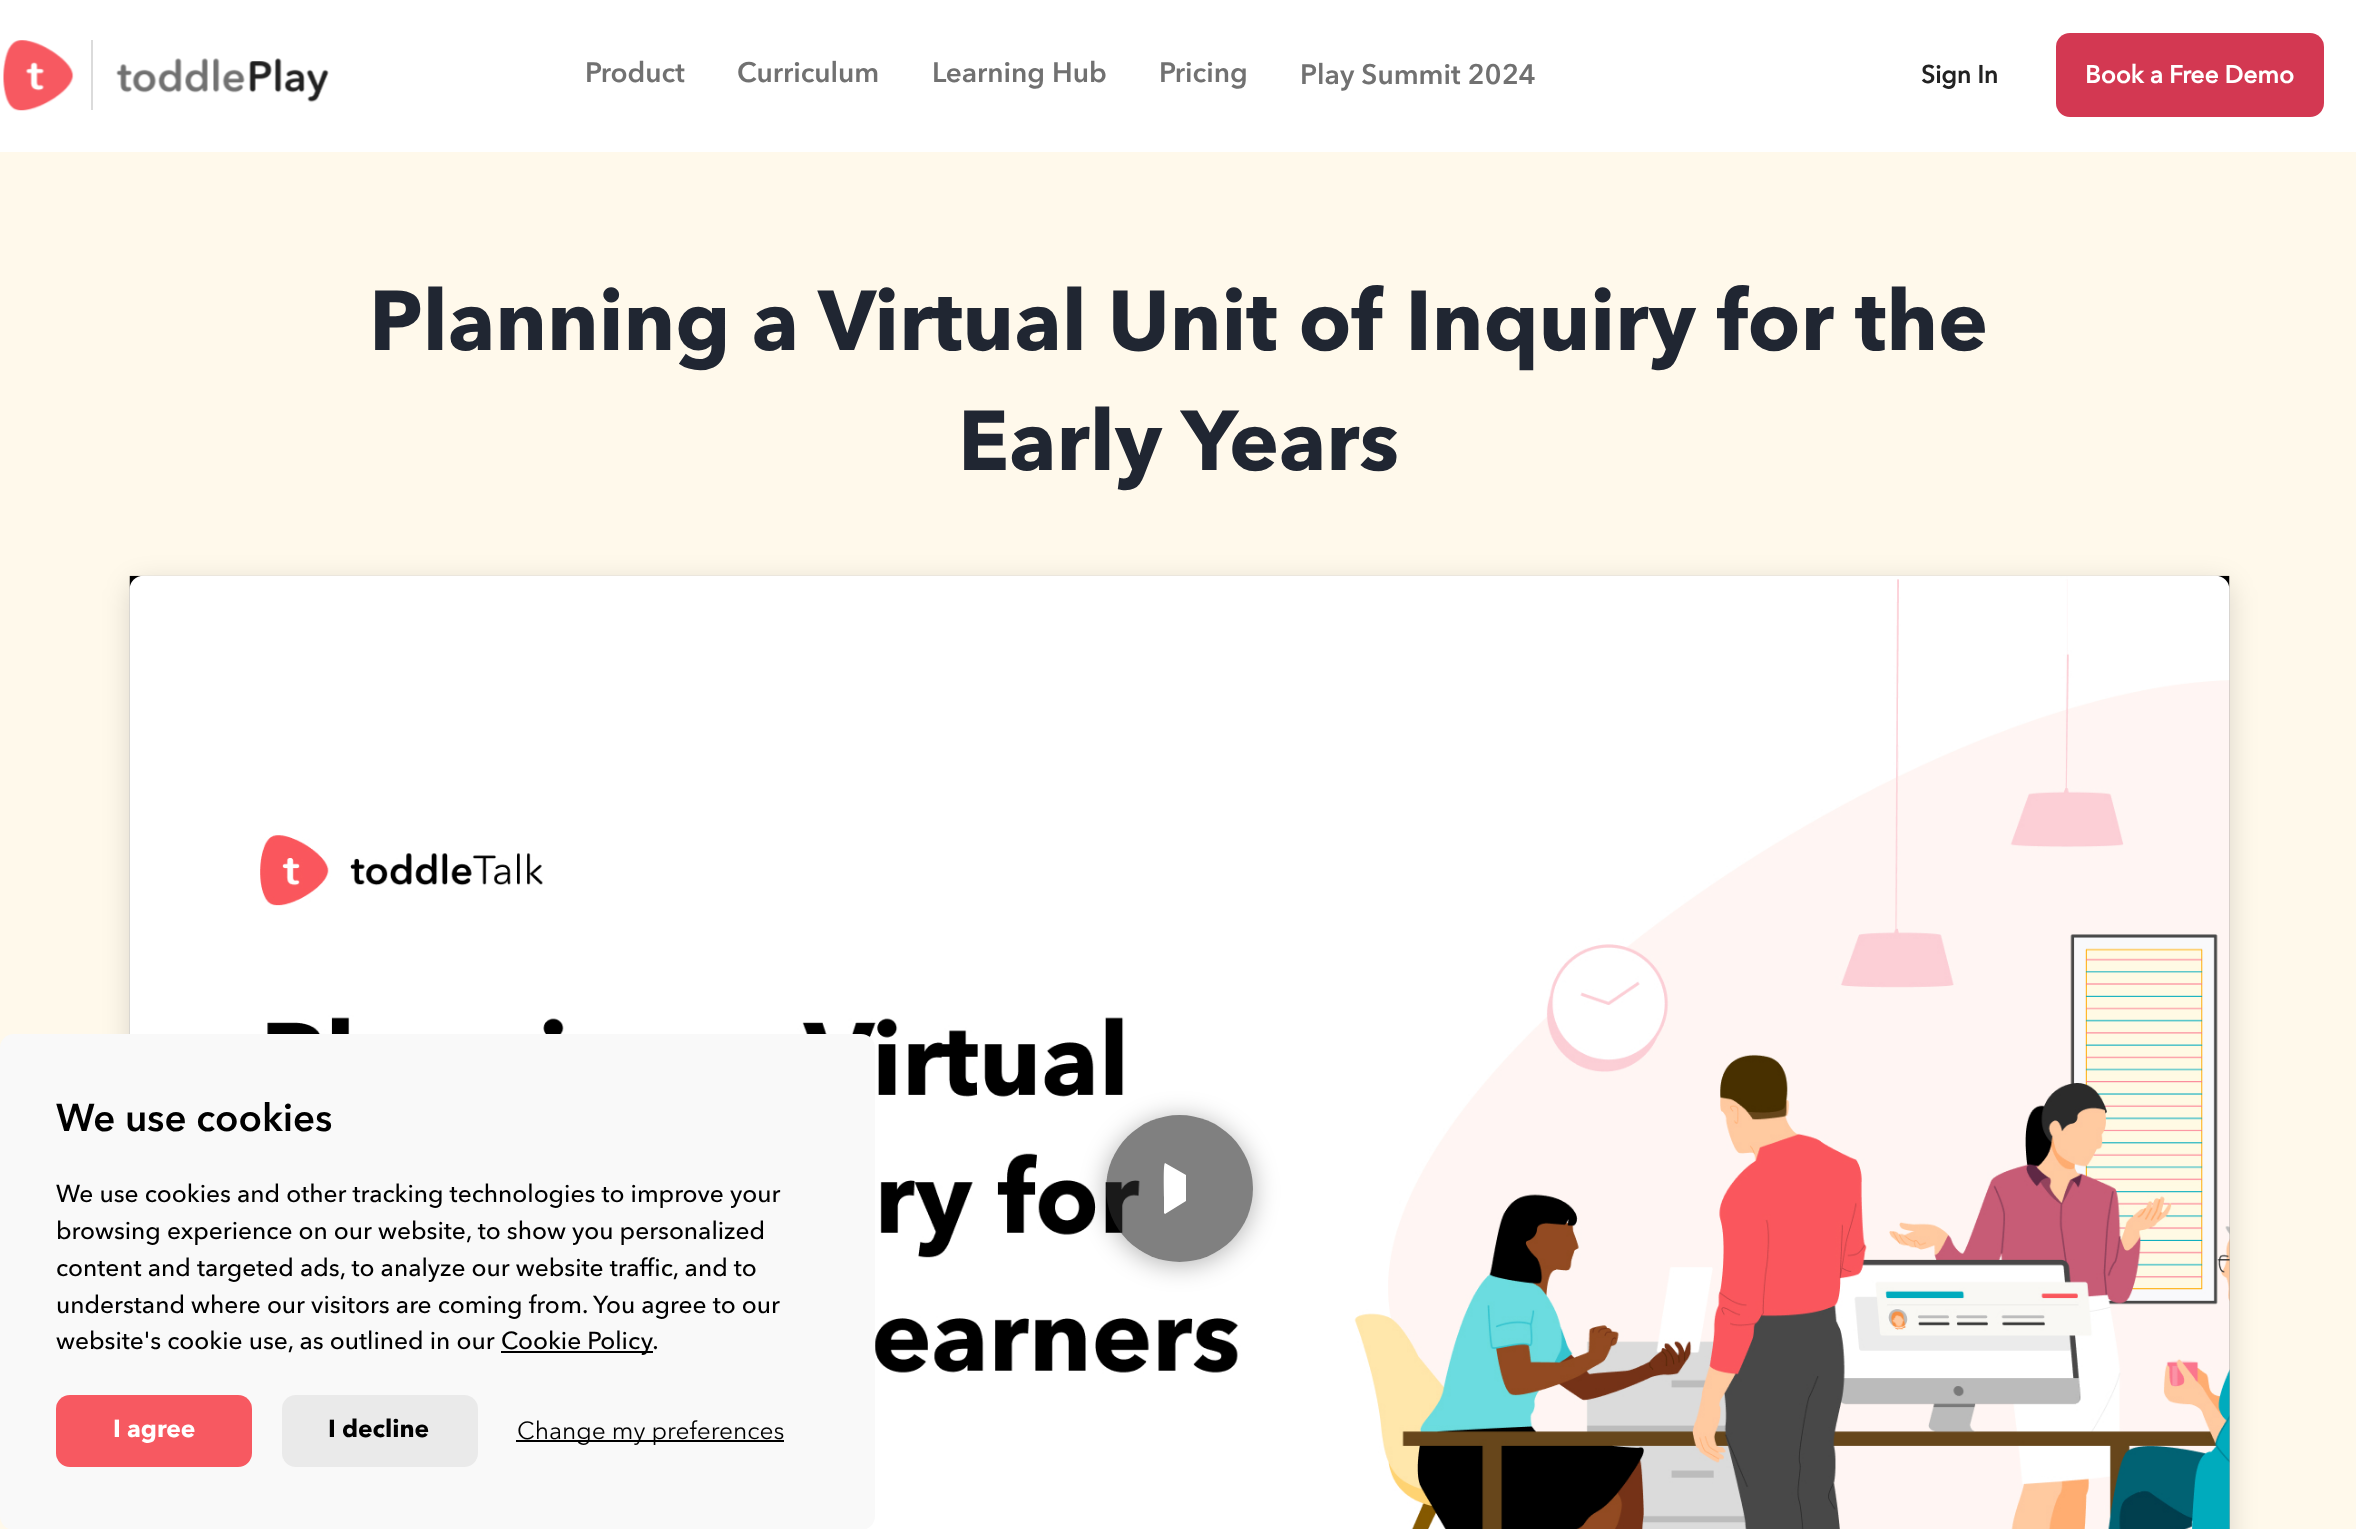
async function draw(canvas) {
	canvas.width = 2356;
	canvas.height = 1529;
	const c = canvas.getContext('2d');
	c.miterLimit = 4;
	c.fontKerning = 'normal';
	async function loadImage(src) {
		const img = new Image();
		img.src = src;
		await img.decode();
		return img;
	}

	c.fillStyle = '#fff9eb';
	c.fillRect(0, 0, 2356, 1529);
	c.fillStyle = '#fff';
	c.fillRect(0, 0, 2356, 152);
	c.drawImage(await loadImage('img1.png'), 3, 40, 71, 71);
	c.fillStyle = '#dbdbdb';
	c.fillRect(91, 40, 2, 70);
	c.drawImage(await loadImage('img2.png'), 116, 58, 213, 45);
	c.font = '600 28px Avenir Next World';
	c.fillStyle = '#717171';
	for (const [text, x, y] of [
		['Product', 585, 82],
		['Curriculum', 737, 82],
		['Learning Hub', 932, 82],
		['Pricing', 1159, 82],
		['Play Summit 2024', 1300, 84],
	]) {
		c.fillText(text, x, y);
	}
	c.font = 'bold 24.5px "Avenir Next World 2"';
	c.fillStyle = '#222';
	c.fillText('Sign In', 1921, 83);
	c.fillStyle = '#d33852';
	c.beginPath();
	c.roundRect(2056, 33, 268, 84, 14);
	c.fill();
	c.fillStyle = '#fff';
	c.fillText('Book a Free Demo', 2085, 83);
	c.font = 'bold 84px Avenir Next World';
	c.fillStyle = '#202632';
	c.fillText('Planning a Virtual Unit of Inquiry for the', 369, 350);
	c.fillText('Early Years', 958, 470);
	c.drawImage(await loadImage('img4.png'), 129, 575, 2101, 954);
	c.fillStyle = '#00000026';
	c.filter = 'blur(14px)';
	c.beginPath();
	c.roundRect(130, 583, 2100, 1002, 14);
	c.fill();
	c.filter = 'none';
	c.drawImage(await loadImage('img3.png'), 129, 575, 2101, 954);
	c.save();
	c.beginPath();
	c.moveTo(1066, 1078);
	c.lineTo(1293, 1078);
	c.lineTo(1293, 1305);
	c.lineTo(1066, 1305);
	c.closePath();
	c.moveTo(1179.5, 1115);
	c.bezierCurveTo(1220, 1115, 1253, 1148, 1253, 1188.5);
	c.bezierCurveTo(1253, 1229, 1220, 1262, 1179.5, 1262);
	c.bezierCurveTo(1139, 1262, 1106, 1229, 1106, 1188.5);
	c.bezierCurveTo(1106, 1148, 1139, 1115, 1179.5, 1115);
	c.closePath();
	c.clip('evenodd');
	c.fillStyle = '#0000004d';
	c.filter = 'blur(13px)';
	c.beginPath();
	c.roundRect(1106, 1118, 147, 147, 73.5);
	c.fill();
	c.filter = 'none';
	c.restore();
	c.fillStyle = '#2b2b2b99';
	c.beginPath();
	c.arc(1179.5, 1188.5, 73.5, 0, 2 * Math.PI);
	c.fill();
	c.fillStyle = '#fff';
	c.beginPath();
	c.moveTo(1165, 1163);
	c.lineTo(1186, 1175);
	c.lineTo(1186, 1201);
	c.lineTo(1165, 1214);
	c.lineTo(1164, 1213);
	c.lineTo(1164, 1197);
	c.bezierCurveTo(1164, 1192, 1163, 1164, 1165, 1163);
	c.closePath();
	c.fill();
	c.fillStyle = '#f9f9f9';
	c.beginPath();
	c.roundRect(0, 1034, 875, 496, 14);
	c.fill();
	c.font = '600 38.5px Avenir Next World';
	c.fillStyle = '#000';
	c.fillText('We use cookies', 56, 1131);
	c.font = '500 24.5px Avenir Next World';
	for (const [text, x, y] of [
		['We use cookies and other tracking technologies to improve your', 56, 1202],
		['browsing experience on our website, to show you personalized', 56, 1239],
		['content and targeted ads, to analyze our website traffic, and to', 56, 1276],
		['understand where our visitors are coming from.', 56, 1313],
		['You agree to our', 593, 1313],
		['website\'s cookie use, as outlined in our', 56, 1349],
	]) {
		c.fillText(text, x, y);
	}
	c.fillRect(501, 1351, 152, 2);
	c.fillText('Cookie Policy.', 501, 1349);
	c.fillStyle = '#f75961';
	c.beginPath();
	c.roundRect(56, 1395, 196, 72, 14);
	c.fill();
	c.font = 'bold 24.5px Avenir Next World';
	c.fillStyle = '#fff';
	c.fillText('I agree', 113, 1437);
	c.fillStyle = '#eaeaea';
	c.beginPath();
	c.roundRect(282, 1395, 196, 72, 14);
	c.fill();
	c.fillStyle = '#000';
	c.fillText('I decline', 328, 1437);
	c.fillRect(516, 1440, 268, 2);
	c.font = '24.5px Avenir Next World';
	c.fillText('Change my preferences', 517, 1439);
}

draw(document.querySelector('canvas'));
